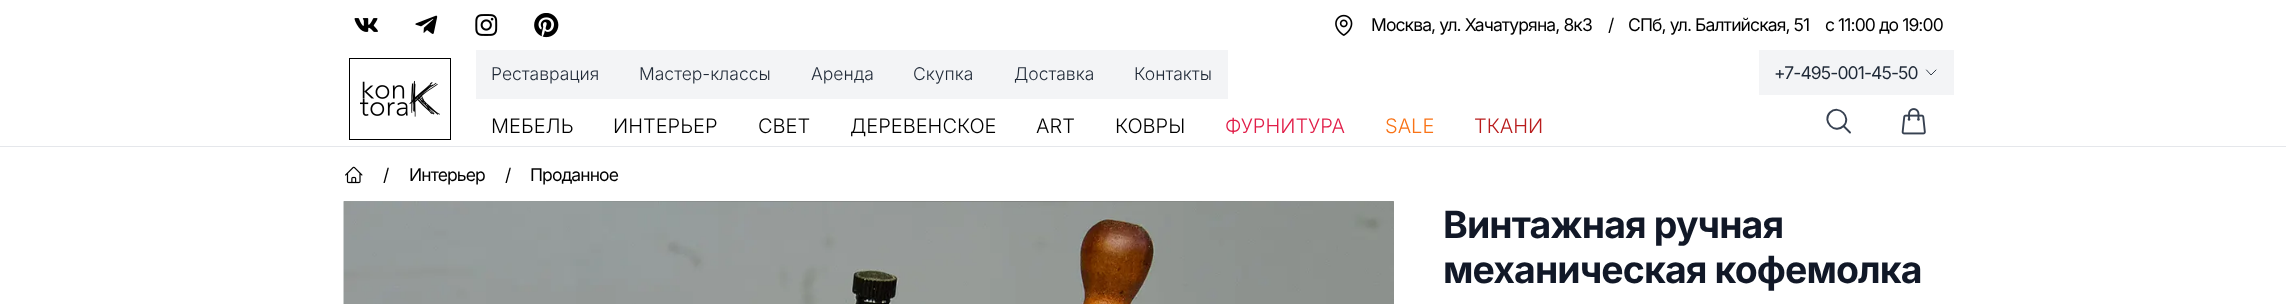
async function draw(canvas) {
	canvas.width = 2286;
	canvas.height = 304;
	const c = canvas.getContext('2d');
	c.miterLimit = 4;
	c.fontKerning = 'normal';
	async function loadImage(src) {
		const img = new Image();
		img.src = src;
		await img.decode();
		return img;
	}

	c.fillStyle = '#fff';
	c.fillRect(0, 0, 2286, 304);
	c.drawImage(await loadImage('img1.png'), 354, 18, 24, 14);
	c.drawImage(await loadImage('img2.png'), 415, 15, 23, 19);
	c.drawImage(await loadImage('img3.png'), 475, 14, 23, 22);
	c.drawImage(await loadImage('img4.png'), 534, 13, 25, 25);
	c.drawImage(await loadImage('img5.png'), 1335, 14, 18, 22);
	c.letterSpacing = '-0.9px';
	c.font = '17.5px Inter';
	c.fillStyle = '#000';
	for (const [text, x, y] of [
		['Москва, ул. Хачатуряна, 8к3', 1371, 31],
		['/', 1608, 31],
		['СПб, ул. Балтийская, 51', 1628, 31],
		['с 11:00 до 19:00', 1825, 31],
	]) {
		c.fillText(text, x, y);
	}
	c.fillStyle = '#e5e7eb';
	c.fillRect(0, 146, 2286, 1);
	c.strokeStyle = '#000';
	c.strokeRect(349.5, 58.5, 101, 81);
	c.drawImage(await loadImage('img6.png'), 360, 80, 80, 37);
	c.fillStyle = '#f3f4f6';
	c.fillRect(476, 50, 752, 49);
	c.letterSpacing = '0px';
	c.font = '300 17.5px Inter';
	c.fillStyle = '#1f2937';
	for (const [text, x, y] of [
		['Реставрация', 491, 80],
		['Мастер-классы', 639, 80],
		['Аренда', 811, 80],
		['Скупка', 913, 80],
		['Доставка', 1014, 80],
		['Контакты', 1134, 80],
	]) {
		c.fillText(text, x, y);
	}
	c.font = '300 20px Inter';
	c.fillStyle = '#000';
	for (const [text, x, y] of [
		['МЕБЕЛЬ', 491, 133],
		['ИНТЕРЬЕР', 613, 133],
		['СВЕТ', 758, 133],
		['ДЕРЕВЕНСКОЕ', 850, 133],
		['ART', 1036, 133],
		['КОВРЫ', 1115, 133],
	]) {
		c.fillText(text, x, y);
	}
	c.fillStyle = '#e11d48';
	c.fillText('ФУРНИТУРА', 1225, 133);
	c.fillStyle = '#f97316';
	c.fillText('SALE', 1385, 133);
	c.fillStyle = '#b91c1c';
	c.fillText('ТКАНИ', 1474, 133);
	c.fillStyle = '#f3f4f6';
	c.fillRect(1759, 50, 195, 45);
	c.letterSpacing = '-0.9px';
	c.font = '17.5px Inter';
	c.fillStyle = '#1f2937';
	c.fillText('+7-495-001-45-50', 1774, 79);
	c.beginPath();
	c.moveTo(1936, 70);
	c.lineTo(1931, 75);
	c.lineTo(1926.5, 70);
	c.strokeStyle = '#1f2937';
	c.lineWidth = 0.9;
	c.lineCap = 'round';
	c.lineJoin = 'round';
	c.stroke();
	c.beginPath();
	c.moveTo(1850, 132.5);
	c.lineTo(1843.5, 126);
	c.moveTo(1843.5, 126);
	c.bezierCurveTo(1852, 117.5, 1839, 104, 1830, 112.5);
	c.bezierCurveTo(1821.5, 121.5, 1835, 134.5, 1843.5, 126);
	c.closePath();
	c.strokeStyle = '#374151';
	c.lineWidth = 1.9;
	c.stroke();
	c.drawImage(await loadImage('img7.png'), 1901, 108, 25, 27);
	c.drawImage(await loadImage('img8.png'), 345, 166, 18, 18);
	c.fillStyle = '#000';
	for (const [text, x, y] of [
		['/', 383, 181],
		['Интерьер', 409, 181],
		['/', 505, 181],
		['Проданное', 530, 181],
	]) {
		c.fillText(text, x, y);
	}
	c.drawImage(await loadImage('img9.png'), 343, 201, 1051, 103);
	c.drawImage(await loadImage('img10.png'), 343, 201, 1051, 103);
	c.font = 'bold 37.5px Inter';
	c.fillStyle = '#111827';
	c.fillText('Винтажная ручная', 1443, 238);
	c.fillText('механическая кофемолка', 1443, 283);
}

draw(document.querySelector('canvas'));
